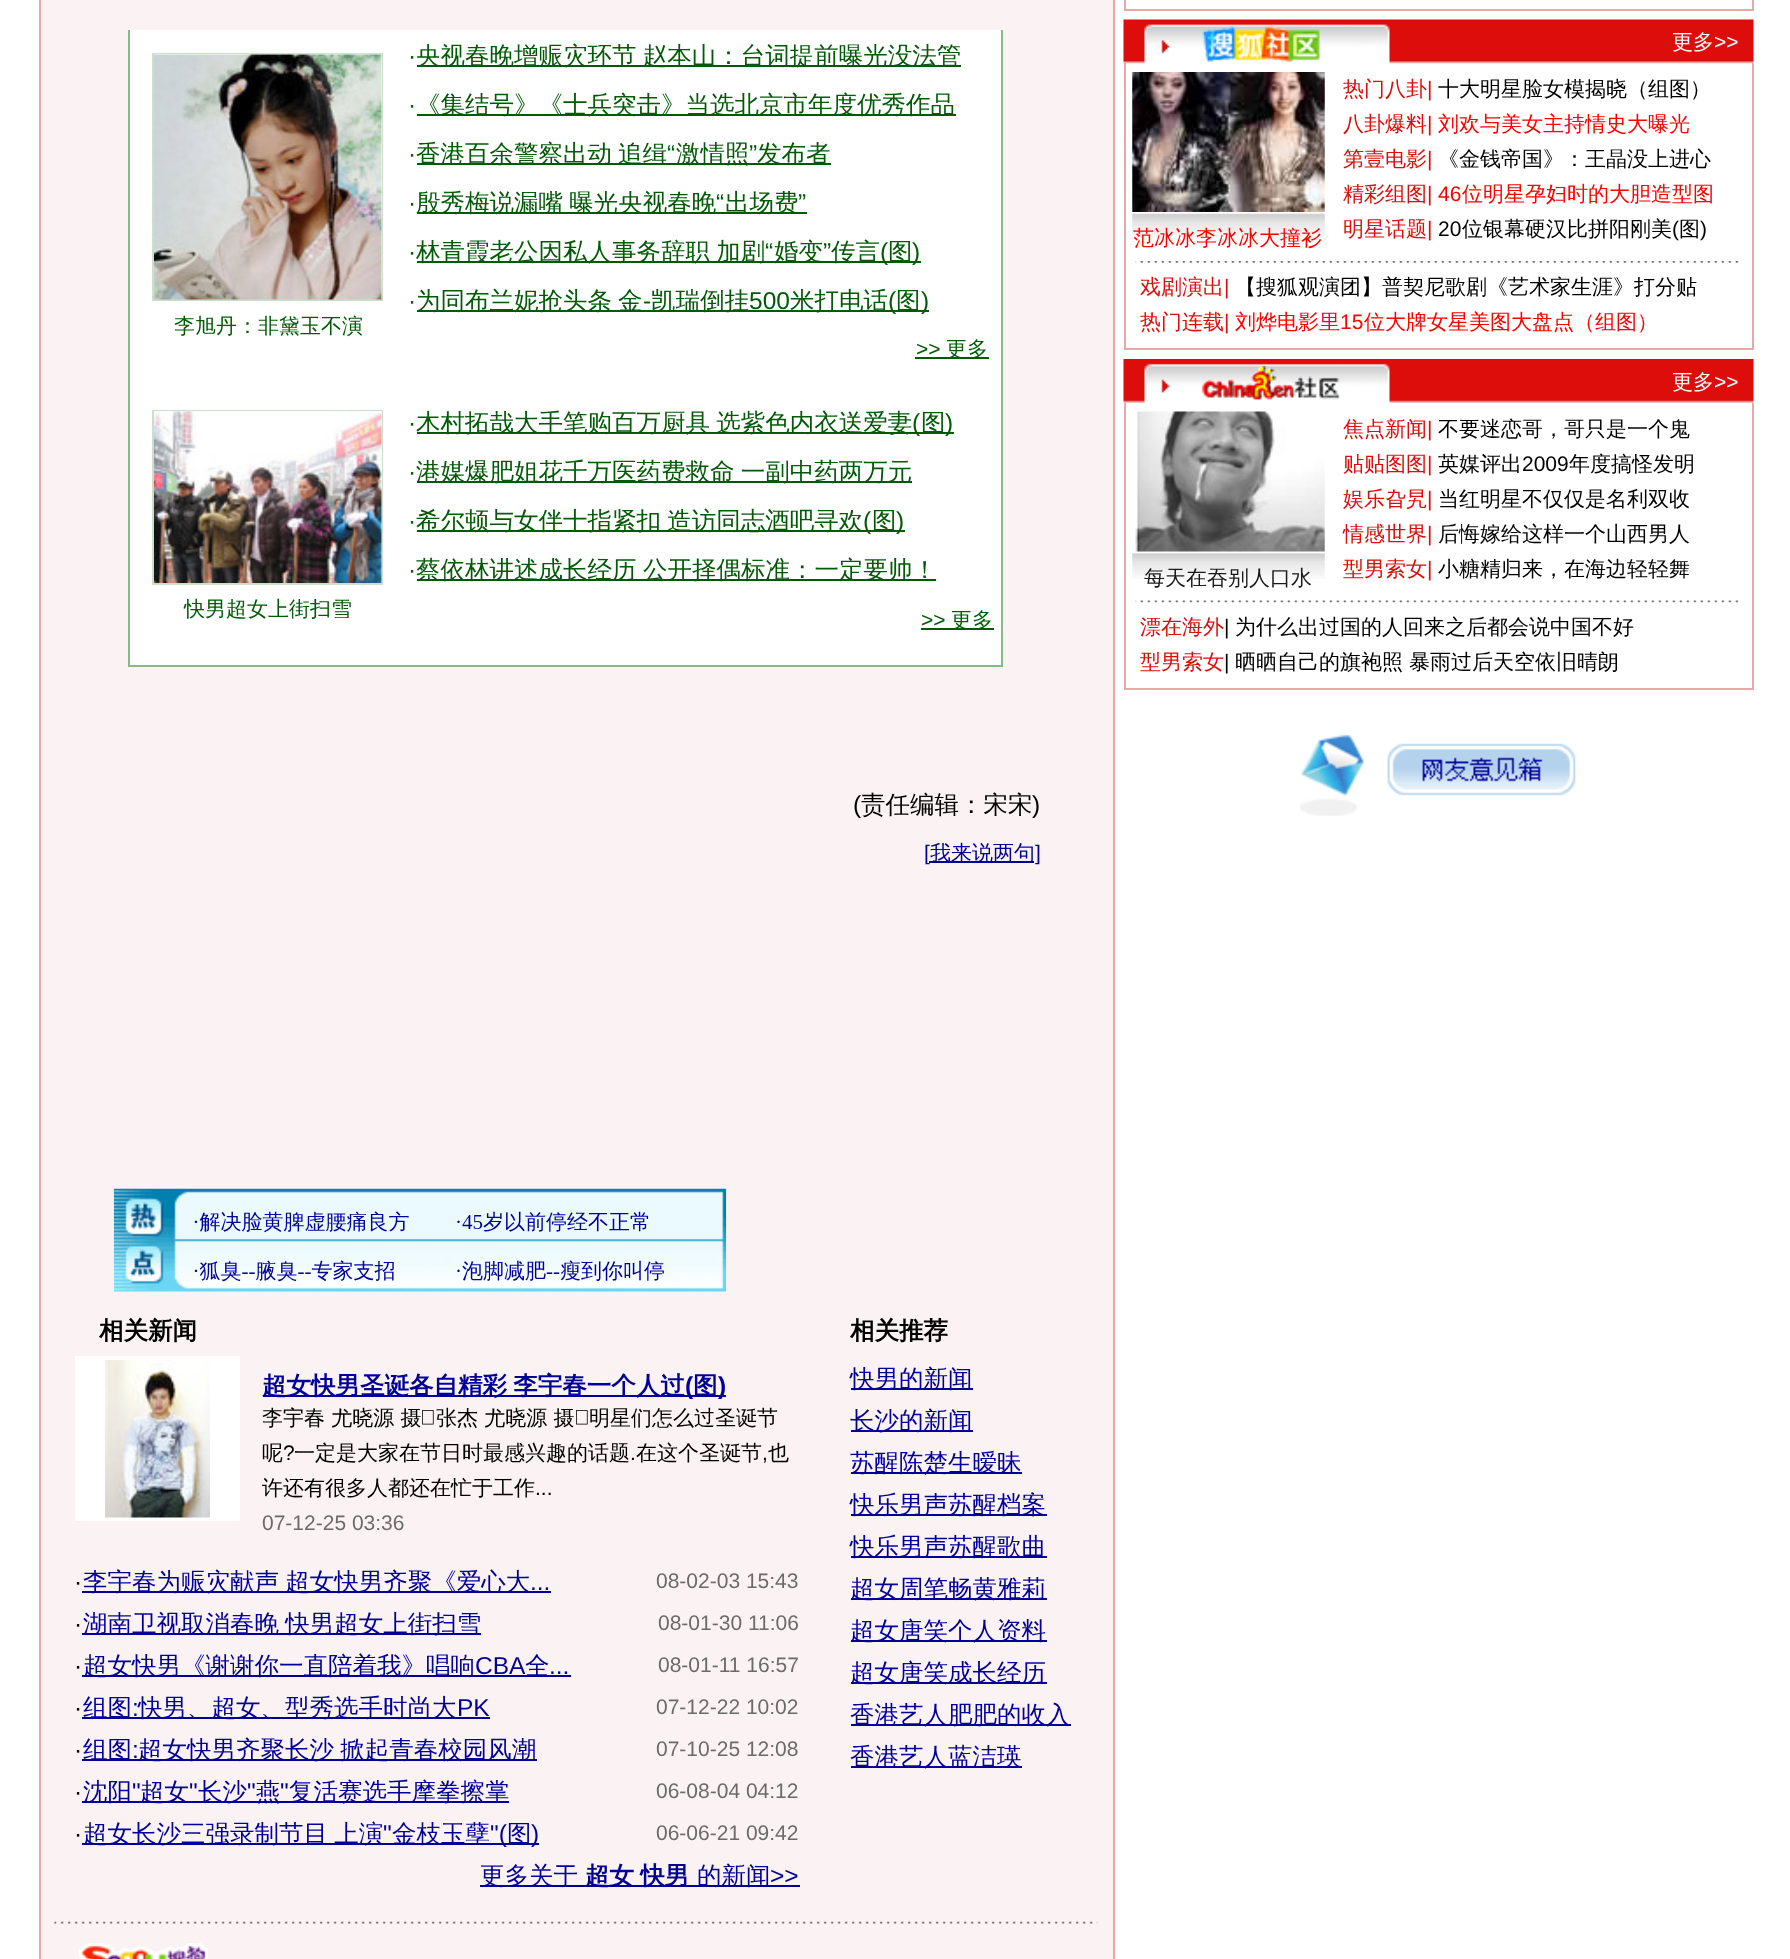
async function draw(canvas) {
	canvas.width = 1790;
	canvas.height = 1959;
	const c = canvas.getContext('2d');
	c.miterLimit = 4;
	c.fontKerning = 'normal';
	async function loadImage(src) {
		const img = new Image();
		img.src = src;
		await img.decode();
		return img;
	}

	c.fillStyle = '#fff';
	c.fillRect(0, 0, 1790, 1959);
	c.fillStyle = '#fbf2f4';
	c.beginPath();
	c.rect(40, -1, 1074, 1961);
	c.fill();
	c.strokeStyle = '#e9a8a8';
	c.lineWidth = 2;
	c.stroke();
	for (const [x, y, w, h, color] of [
		[130, 30, 871, 635, '#fff'],
		[1001, 30, 2, 637, '#84bb84'],
		[128, 665, 875, 2, '#84bb84'],
		[128, 30, 2, 637, '#84bb84'],
		[152, 53, 231, 248, '#c9e0c9'],
		[154, 54, 228, 245, '#fff'],
	]) {
		c.fillStyle = color;
		c.fillRect(x, y, w, h);
	}
	c.drawImage(await loadImage('img1.png'), 154, 54, 228, 246);
	c.font = '500 21px WenQuanYi Zen Hei';
	c.fillStyle = '#025a06';
	c.fillText('李旭丹：非黛玉不演', 174, 333);
	c.font = '24.5px Liberation Sans';
	c.fillText('·', 408, 64);
	c.fillRect(417, 65, 544, 2);
	c.wordSpacing = '-1px';
	c.font = '500 24.5px WenQuanYi Zen Hei';
	c.fillText('央视春晚增赈灾环节 赵本山：台词提前曝光没法管', 416, 64);
	c.wordSpacing = '0px';
	c.font = '24.5px Liberation Sans';
	c.fillText('·', 408, 113);
	c.fillRect(417, 114, 539, 2);
	c.font = '500 24.5px WenQuanYi Zen Hei';
	c.fillText('《集结号》《士兵突击》当选北京市年度优秀作品', 416, 113);
	c.fillRect(417, 163, 414, 2);
	c.fillText('香港百余警察出动', 416, 162);
	c.fillText('追缉', 618, 162);
	c.font = '24.5px Liberation Sans';
	c.fillText('“', 667, 162);
	c.font = '500 24.5px WenQuanYi Zen Hei';
	c.fillText('激情照', 676, 162);
	c.font = '24.5px Liberation Sans';
	c.fillText('”', 749, 162);
	c.font = '500 24.5px WenQuanYi Zen Hei';
	c.fillText('发布者', 757, 162);
	c.font = '24.5px Liberation Sans';
	c.fillText('·', 408, 162);
	c.fillRect(417, 212, 390, 2);
	c.wordSpacing = '-1px';
	c.font = '500 24.5px WenQuanYi Zen Hei';
	c.fillText('殷秀梅说漏嘴 曝光央视春晚', 416, 211);
	c.wordSpacing = '0px';
	c.font = '24.5px Liberation Sans';
	c.fillText('“', 716, 211);
	c.font = '500 24.5px WenQuanYi Zen Hei';
	c.fillText('出场费', 725, 211);
	c.font = '24.5px Liberation Sans';
	c.fillText('”', 798, 211);
	c.fillText('·', 408, 211);
	c.fillRect(417, 261, 504, 2);
	c.wordSpacing = '-1px';
	c.font = '500 24.5px WenQuanYi Zen Hei';
	c.fillText('林青霞老公因私人事务辞职 加剧', 416, 260);
	c.wordSpacing = '0px';
	c.font = '24.5px Liberation Sans';
	c.fillText('“', 765, 260);
	c.font = '500 24.5px WenQuanYi Zen Hei';
	c.fillText('婚变', 774, 260);
	c.font = '24.5px Liberation Sans';
	c.fillText('”', 823, 260);
	c.font = '500 24.5px WenQuanYi Zen Hei';
	c.fillText('传言', 831, 260);
	c.font = '24.5px Liberation Sans';
	c.fillText('(', 880, 260);
	c.font = '500 24.5px WenQuanYi Zen Hei';
	c.fillText('图', 888, 260);
	c.font = '24.5px Liberation Sans';
	for (const [text, x, y] of [
		[')', 912, 260],
		['·', 408, 260],
		['·', 408, 309],
	]) {
		c.fillText(text, x, y);
	}
	c.fillRect(417, 310, 512, 2);
	c.font = '500 24.5px WenQuanYi Zen Hei';
	c.fillText('为同布兰妮抢头条', 416, 309);
	c.fillText('金', 618, 309);
	c.font = '24.5px Liberation Sans';
	c.fillText('-', 643, 309);
	c.font = '500 24.5px WenQuanYi Zen Hei';
	c.fillText('凯瑞倒挂', 651, 309);
	c.font = '24.5px Liberation Sans';
	c.fillText('500', 749, 309);
	c.font = '500 24.5px WenQuanYi Zen Hei';
	c.fillText('米打电话', 790, 309);
	c.font = '24.5px Liberation Sans';
	c.fillText('(', 888, 309);
	c.font = '500 24.5px WenQuanYi Zen Hei';
	c.fillText('图', 896, 309);
	c.font = '24.5px Liberation Sans';
	c.fillText(')', 921, 309);
	c.font = '21px Liberation Sans';
	c.fillText('>>', 916, 356);
	c.fillRect(915, 357, 74, 2);
	c.font = '500 21px WenQuanYi Zen Hei';
	c.fillText('更多', 946, 356);
	c.fillStyle = '#c9e0c9';
	c.fillRect(152, 410, 231, 175);
	c.fillStyle = '#fff';
	c.fillRect(154, 411, 228, 172);
	c.drawImage(await loadImage('img2.png'), 154, 411, 228, 172);
	c.fillStyle = '#025a06';
	c.fillText('快男超女上街扫雪', 184, 616);
	c.font = '24.5px Liberation Sans';
	c.fillText('·', 408, 431);
	c.fillRect(417, 432, 537, 2);
	c.wordSpacing = '-1px';
	c.font = '500 24.5px WenQuanYi Zen Hei';
	c.fillText('木村拓哉大手笔购百万厨具 选紫色内衣送爱妻', 416, 431);
	c.wordSpacing = '0px';
	c.font = '24.5px Liberation Sans';
	c.fillText('(', 912, 431);
	c.font = '500 24.5px WenQuanYi Zen Hei';
	c.fillText('图', 921, 431);
	c.font = '24.5px Liberation Sans';
	c.fillText(')', 945, 431);
	c.fillText('·', 408, 480);
	c.fillRect(417, 481, 495, 2);
	c.wordSpacing = '-1px';
	c.font = '500 24.5px WenQuanYi Zen Hei';
	c.fillText('港媒爆肥姐花千万医药费救命 一副中药两万元', 416, 480);
	c.wordSpacing = '0px';
	c.font = '24.5px Liberation Sans';
	c.fillText('·', 408, 529);
	c.fillRect(417, 530, 488, 2);
	c.wordSpacing = '-1px';
	c.font = '500 24.5px WenQuanYi Zen Hei';
	c.fillText('希尔顿与女伴十指紧扣 造访同志酒吧寻欢', 416, 529);
	c.wordSpacing = '0px';
	c.font = '24.5px Liberation Sans';
	c.fillText('(', 863, 529);
	c.font = '500 24.5px WenQuanYi Zen Hei';
	c.fillText('图', 872, 529);
	c.font = '24.5px Liberation Sans';
	c.fillText(')', 896, 529);
	c.fillText('·', 408, 578);
	c.fillRect(417, 579, 519, 2);
	c.font = '500 24.5px WenQuanYi Zen Hei';
	c.fillText('蔡依林讲述成长经历', 416, 578);
	c.fillText('公开择偶标准：一定要帅！', 643, 578);
	c.font = '21px Liberation Sans';
	c.fillText('>>', 921, 627);
	c.fillRect(921, 628, 73, 2);
	c.font = '500 21px WenQuanYi Zen Hei';
	c.fillText('更多', 951, 627);
	c.font = '24.5px Liberation Sans';
	c.fillStyle = '#000';
	c.fillText('(', 853, 813);
	c.font = '500 24.5px WenQuanYi Zen Hei';
	c.fillText('责任编辑：宋宋', 861, 813);
	c.font = '24.5px Liberation Sans';
	c.fillText(')', 1032, 813);
	c.font = '21px Liberation Sans';
	c.fillStyle = '#009';
	c.fillText('[', 924, 860);
	c.fillRect(929, 861, 105, 2);
	c.font = '500 21px WenQuanYi Zen Hei';
	c.fillText('我来说两句', 930, 860);
	c.font = '21px Liberation Sans';
	c.fillText(']', 1035, 860);
	c.drawImage(await loadImage('img3.png'), 113, 1188, 614, 104);
	c.font = 'bold 24.5px WenQuanYi Zen Hei';
	c.fillStyle = '#000';
	c.fillText('相关新闻', 99, 1339);
	c.fillStyle = '#fff';
	c.fillRect(75, 1356, 165, 165);
	c.drawImage(await loadImage('img4.png'), 105, 1360, 105, 158);
	c.fillStyle = '#009';
	c.fillRect(263, 1395, 463, 2);
	c.wordSpacing = '-1px';
	c.fillText('超女快男圣诞各自精彩 李宇春一个人过', 262, 1394);
	c.wordSpacing = '0px';
	c.font = 'bold 24.5px Liberation Sans';
	c.fillText('(', 685, 1394);
	c.font = 'bold 24.5px WenQuanYi Zen Hei';
	c.fillText('图', 693, 1394);
	c.font = 'bold 24.5px Liberation Sans';
	c.fillText(')', 718, 1394);
	c.font = '500 21px WenQuanYi Zen Hei';
	c.fillStyle = '#000';
	c.fillText('李宇春 尤晓源 摄', 262, 1425);
	c.drawImage(await loadImage('img5.png'), 422, 1410, 12, 15);
	c.fillText('张杰 尤晓源 摄', 436, 1425);
	c.drawImage(await loadImage('img5.png'), 576, 1410, 12, 15);
	c.fillText('明星们怎么过圣诞节', 589, 1425);
	c.fillText('呢', 262, 1460);
	c.font = '21px Liberation Sans';
	c.fillText('?', 283, 1460);
	c.font = '500 21px WenQuanYi Zen Hei';
	c.fillText('一定是大家在节日时最感兴趣的话题', 294, 1460);
	c.font = '21px Liberation Sans';
	c.fillText('.', 630, 1460);
	c.font = '500 21px WenQuanYi Zen Hei';
	c.fillText('在这个圣诞节', 636, 1460);
	c.font = '21px Liberation Sans';
	c.fillText(',', 762, 1460);
	c.font = '500 21px WenQuanYi Zen Hei';
	c.fillText('也', 768, 1460);
	c.fillText('许还有很多人都还在忙于工作', 262, 1495);
	c.font = '21px Liberation Sans';
	c.fillText('...', 535, 1495);
	c.fillStyle = '#6b6b6b';
	c.fillText('07-12-25 03:36', 262, 1530);
	c.font = '24.5px Liberation Sans';
	c.fillStyle = '#000';
	c.fillText('·', 74, 1590);
	c.fillStyle = '#009';
	c.fillRect(82, 1591, 469, 2);
	c.wordSpacing = '-1px';
	c.font = '500 24.5px WenQuanYi Zen Hei';
	c.fillText('李宇春为赈灾献声 超女快男齐聚《爱心大', 83, 1590);
	c.wordSpacing = '0px';
	c.font = '21px Liberation Sans';
	c.fillStyle = '#6b6b6b';
	c.fillText('08-02-03 15:43', 656, 1588);
	c.font = '24.5px Liberation Sans';
	c.fillStyle = '#009';
	c.fillText('...', 530, 1590);
	c.fillStyle = '#000';
	c.fillText('·', 74, 1632);
	c.fillStyle = '#009';
	c.fillRect(82, 1633, 399, 2);
	c.wordSpacing = '-1px';
	c.font = '500 24.5px WenQuanYi Zen Hei';
	c.fillText('湖南卫视取消春晚 快男超女上街扫雪', 83, 1632);
	c.wordSpacing = '0px';
	c.font = '21px Liberation Sans';
	c.fillStyle = '#6b6b6b';
	c.fillText('08-01-30 11:06', 658, 1630);
	c.font = '24.5px Liberation Sans';
	c.fillStyle = '#000';
	c.fillText('·', 74, 1674);
	c.fillStyle = '#009';
	c.fillRect(82, 1675, 489, 2);
	c.font = '500 24.5px WenQuanYi Zen Hei';
	c.fillText('超女快男《谢谢你一直陪着我》唱响', 83, 1674);
	c.font = '24.5px Liberation Sans';
	c.fillText('CBA', 475, 1674);
	c.font = '500 24.5px WenQuanYi Zen Hei';
	c.fillText('全', 525, 1674);
	c.font = '21px Liberation Sans';
	c.fillStyle = '#6b6b6b';
	c.fillText('08-01-11 16:57', 658, 1672);
	c.font = '24.5px Liberation Sans';
	c.fillStyle = '#009';
	c.fillText('...', 549, 1674);
	c.fillStyle = '#000';
	c.fillText('·', 74, 1716);
	c.fillStyle = '#009';
	c.fillRect(82, 1717, 408, 2);
	c.font = '500 24.5px WenQuanYi Zen Hei';
	c.fillText('组图', 83, 1716);
	c.font = '24.5px Liberation Sans';
	c.fillText(':', 132, 1716);
	c.font = '500 24.5px WenQuanYi Zen Hei';
	c.fillText('快男、超女、型秀选手时尚大', 138, 1716);
	c.font = '24.5px Liberation Sans';
	c.fillText('PK', 457, 1716);
	c.font = '21px Liberation Sans';
	c.fillStyle = '#6b6b6b';
	c.fillText('07-12-22 10:02', 656, 1714);
	c.font = '24.5px Liberation Sans';
	c.fillStyle = '#000';
	c.fillText('·', 74, 1758);
	c.fillStyle = '#009';
	c.fillRect(82, 1759, 455, 2);
	c.font = '500 24.5px WenQuanYi Zen Hei';
	c.fillText('组图', 83, 1758);
	c.font = '24.5px Liberation Sans';
	c.fillText(':', 132, 1758);
	c.wordSpacing = '-1px';
	c.font = '500 24.5px WenQuanYi Zen Hei';
	c.fillText('超女快男齐聚长沙 掀起青春校园风潮', 138, 1758);
	c.wordSpacing = '0px';
	c.font = '21px Liberation Sans';
	c.fillStyle = '#6b6b6b';
	c.fillText('07-10-25 12:08', 656, 1756);
	c.font = '24.5px Liberation Sans';
	c.fillStyle = '#000';
	c.fillText('·', 74, 1800);
	c.fillStyle = '#009';
	c.fillRect(82, 1801, 427, 2);
	c.font = '500 24.5px WenQuanYi Zen Hei';
	c.fillText('沈阳', 83, 1800);
	c.font = '24.5px Liberation Sans';
	c.fillText('"', 132, 1800);
	c.font = '500 24.5px WenQuanYi Zen Hei';
	c.fillText('超女', 140, 1800);
	c.font = '24.5px Liberation Sans';
	c.fillText('"', 189, 1800);
	c.font = '500 24.5px WenQuanYi Zen Hei';
	c.fillText('长沙', 198, 1800);
	c.font = '24.5px Liberation Sans';
	c.fillText('"', 247, 1800);
	c.font = '500 24.5px WenQuanYi Zen Hei';
	c.fillText('燕', 256, 1800);
	c.font = '24.5px Liberation Sans';
	c.fillText('"', 280, 1800);
	c.font = '500 24.5px WenQuanYi Zen Hei';
	c.fillText('复活赛选手摩拳擦掌', 289, 1800);
	c.font = '21px Liberation Sans';
	c.fillStyle = '#6b6b6b';
	c.fillText('06-08-04 04:12', 656, 1798);
	c.font = '24.5px Liberation Sans';
	c.fillStyle = '#000';
	c.fillText('·', 74, 1842);
	c.fillStyle = '#009';
	c.fillRect(82, 1843, 457, 2);
	c.wordSpacing = '-1px';
	c.font = '500 24.5px WenQuanYi Zen Hei';
	c.fillText('超女长沙三强录制节目 上演', 83, 1842);
	c.wordSpacing = '0px';
	c.font = '24.5px Liberation Sans';
	c.fillText('"', 383, 1842);
	c.font = '500 24.5px WenQuanYi Zen Hei';
	c.fillText('金枝玉孽', 392, 1842);
	c.font = '24.5px Liberation Sans';
	c.fillText('"(', 490, 1842);
	c.font = '500 24.5px WenQuanYi Zen Hei';
	c.fillText('图', 507, 1842);
	c.font = '24.5px Liberation Sans';
	c.fillText(')', 531, 1842);
	c.font = '21px Liberation Sans';
	c.fillStyle = '#6b6b6b';
	c.fillText('06-06-21 09:42', 656, 1840);
	c.fillStyle = '#009';
	c.fillRect(480, 1885, 320, 2);
	c.font = '500 24.5px WenQuanYi Zen Hei';
	c.fillText('更多关于', 480, 1884);
	c.wordSpacing = '-1px';
	c.font = 'bold 24.5px WenQuanYi Zen Hei';
	c.fillText('超女 快男', 585, 1884);
	c.wordSpacing = '0px';
	c.font = '500 24.5px WenQuanYi Zen Hei';
	c.fillText('的新闻', 697, 1884);
	c.font = '24.5px Liberation Sans';
	c.fillText('>>', 770, 1884);
	c.font = 'bold 24.5px WenQuanYi Zen Hei';
	c.fillStyle = '#000';
	c.fillText('相关推荐', 850, 1339);
	c.fillStyle = '#009';
	c.fillRect(851, 1388, 122, 2);
	c.font = '500 24.5px WenQuanYi Zen Hei';
	c.fillText('快男的新闻', 850, 1387);
	c.fillRect(851, 1430, 122, 2);
	c.fillText('长沙的新闻', 850, 1429);
	c.fillRect(851, 1472, 171, 2);
	c.fillText('苏醒陈楚生暧昧', 850, 1471);
	c.fillRect(851, 1514, 196, 2);
	c.fillText('快乐男声苏醒档案', 850, 1513);
	c.fillRect(851, 1556, 196, 2);
	c.fillText('快乐男声苏醒歌曲', 850, 1555);
	c.fillRect(851, 1598, 196, 2);
	c.fillText('超女周笔畅黄雅莉', 850, 1597);
	c.fillRect(851, 1640, 196, 2);
	c.fillText('超女唐笑个人资料', 850, 1639);
	c.fillRect(851, 1682, 196, 2);
	c.fillText('超女唐笑成长经历', 850, 1681);
	c.fillRect(851, 1724, 220, 2);
	c.fillText('香港艺人肥肥的收入', 850, 1723);
	c.fillRect(851, 1766, 171, 2);
	c.fillText('香港艺人蓝洁瑛', 850, 1765);
	c.drawImage(await loadImage('img6.png'), 54, 1921, 1044, 3);
	c.drawImage(await loadImage('img7.png'), 79, 1943, 129, 16);
	c.strokeRect(1125, -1, 628, 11);
	c.drawImage(await loadImage('img8.png'), 1123, 19, 631, 45);
	c.drawImage(await loadImage('img9.png'), 1202, 26, 118, 36);
	c.font = '500 21px WenQuanYi Zen Hei';
	c.fillStyle = '#fff';
	c.fillText('更多', 1672, 49);
	c.font = '21px Liberation Sans';
	c.fillText('>>', 1714, 49);
	for (const [x, y, w, h, color] of [
		[1752, 63, 2, 287, '#e9a8a8'],
		[1124, 348, 630, 2, '#e9a8a8'],
		[1124, 63, 2, 287, '#e9a8a8'],
	]) {
		c.fillStyle = color;
		c.fillRect(x, y, w, h);
	}
	c.drawImage(await loadImage('img10.png'), 1132, 72, 193, 140);
	c.drawImage(await loadImage('img11.png'), 1132, 213, 193, 27);
	c.font = '500 21px WenQuanYi Zen Hei';
	c.fillStyle = '#f00';
	c.fillText('范冰冰李冰冰大撞衫', 1133, 245);
	c.fillStyle = '#dd0d0b';
	c.fillText('热门八卦', 1343, 96);
	c.font = '21px Liberation Sans';
	c.fillText('|', 1427, 96);
	c.font = '500 21px WenQuanYi Zen Hei';
	c.fillStyle = '#000';
	c.fillText('十大明星脸女模揭晓（组图）', 1438, 96);
	c.fillStyle = '#dd0d0b';
	c.fillText('八卦爆料', 1343, 131);
	c.font = '21px Liberation Sans';
	c.fillText('|', 1427, 131);
	c.font = '500 21px WenQuanYi Zen Hei';
	c.fillStyle = '#f00';
	c.fillText('刘欢与美女主持情史大曝光', 1438, 131);
	c.fillStyle = '#dd0d0b';
	c.fillText('第壹电影', 1343, 166);
	c.font = '21px Liberation Sans';
	c.fillText('|', 1427, 166);
	c.font = '500 21px WenQuanYi Zen Hei';
	c.fillStyle = '#000';
	c.fillText('《金钱帝国》：王晶没上进心', 1438, 166);
	c.fillStyle = '#dd0d0b';
	c.fillText('精彩组图', 1343, 201);
	c.font = '21px Liberation Sans';
	c.fillText('|', 1427, 201);
	c.fillStyle = '#f00';
	c.fillText('46', 1438, 201);
	c.font = '500 21px WenQuanYi Zen Hei';
	c.fillText('位明星孕妇时的大胆造型图', 1462, 201);
	c.fillStyle = '#dd0d0b';
	c.fillText('明星话题', 1343, 236);
	c.font = '21px Liberation Sans';
	c.fillText('|', 1427, 236);
	c.fillStyle = '#000';
	c.fillText('20', 1438, 236);
	c.font = '500 21px WenQuanYi Zen Hei';
	c.fillText('位银幕硬汉比拼阳刚美', 1462, 236);
	c.font = '21px Liberation Sans';
	c.fillText('(', 1672, 236);
	c.font = '500 21px WenQuanYi Zen Hei';
	c.fillText('图', 1679, 236);
	c.font = '21px Liberation Sans';
	c.fillText(')', 1700, 236);
	c.drawImage(await loadImage('img12.png'), 1135, 261, 604, 2);
	c.font = '500 21px WenQuanYi Zen Hei';
	c.fillStyle = '#dd0d0b';
	c.fillText('戏剧演出', 1140, 294);
	c.font = '21px Liberation Sans';
	c.fillText('|', 1224, 294);
	c.font = '500 21px WenQuanYi Zen Hei';
	c.fillStyle = '#000';
	c.fillText('【搜狐观演团】普契尼歌剧《艺术家生涯》打分贴', 1235, 294);
	c.fillStyle = '#dd0d0b';
	c.fillText('热门连载', 1140, 329);
	c.font = '21px Liberation Sans';
	c.fillText('|', 1224, 329);
	c.font = '500 21px WenQuanYi Zen Hei';
	c.fillStyle = '#f00';
	c.fillText('刘烨电影里', 1235, 329);
	c.font = '21px Liberation Sans';
	c.fillText('15', 1340, 329);
	c.font = '500 21px WenQuanYi Zen Hei';
	c.fillText('位大牌女星美图大盘点（组图）', 1364, 329);
	c.drawImage(await loadImage('img13.png'), 1123, 359, 631, 44);
	c.drawImage(await loadImage('img14.png'), 1202, 366, 138, 34);
	c.fillStyle = '#fff';
	c.fillText('更多', 1672, 389);
	c.font = '21px Liberation Sans';
	c.fillText('>>', 1714, 389);
	for (const [x, y, w, h, color] of [
		[1752, 403, 2, 287, '#e9a8a8'],
		[1124, 688, 630, 2, '#e9a8a8'],
		[1124, 403, 2, 287, '#e9a8a8'],
	]) {
		c.fillStyle = color;
		c.fillRect(x, y, w, h);
	}
	c.drawImage(await loadImage('img15.png'), 1135, 411, 190, 141);
	c.drawImage(await loadImage('img16.png'), 1132, 553, 193, 26);
	c.font = '500 21px WenQuanYi Zen Hei';
	c.fillStyle = '#191919';
	c.fillText('每天在吞别人口水', 1144, 585);
	c.fillStyle = '#dd0d0b';
	c.fillText('焦点新闻', 1343, 436);
	c.font = '21px Liberation Sans';
	c.fillText('|', 1427, 436);
	c.font = '500 21px WenQuanYi Zen Hei';
	c.fillStyle = '#000';
	c.fillText('不要迷恋哥，哥只是一个鬼', 1438, 436);
	c.fillStyle = '#dd0d0b';
	c.fillText('贴贴图图', 1343, 471);
	c.font = '21px Liberation Sans';
	c.fillText('|', 1427, 471);
	c.font = '500 21px WenQuanYi Zen Hei';
	c.fillStyle = '#000';
	c.fillText('英媒评出', 1438, 471);
	c.font = '21px Liberation Sans';
	c.fillText('2009', 1522, 471);
	c.font = '500 21px WenQuanYi Zen Hei';
	c.fillText('年度搞怪发明', 1569, 471);
	c.fillStyle = '#dd0d0b';
	c.fillText('娱乐旮旯', 1343, 506);
	c.font = '21px Liberation Sans';
	c.fillText('|', 1427, 506);
	c.font = '500 21px WenQuanYi Zen Hei';
	c.fillStyle = '#000';
	c.fillText('当红明星不仅仅是名利双收', 1438, 506);
	c.fillStyle = '#dd0d0b';
	c.fillText('情感世界', 1343, 541);
	c.font = '21px Liberation Sans';
	c.fillText('|', 1427, 541);
	c.font = '500 21px WenQuanYi Zen Hei';
	c.fillStyle = '#000';
	c.fillText('后悔嫁给这样一个山西男人', 1438, 541);
	c.fillStyle = '#dd0d0b';
	c.fillText('型男索女', 1343, 576);
	c.font = '21px Liberation Sans';
	c.fillText('|', 1427, 576);
	c.font = '500 21px WenQuanYi Zen Hei';
	c.fillStyle = '#000';
	c.fillText('小糖精归来，在海边轻轻舞', 1438, 576);
	c.drawImage(await loadImage('img17.png'), 1135, 600, 604, 3);
	c.fillStyle = '#dd0d0b';
	c.fillText('漂在海外', 1140, 634);
	c.font = '21px Liberation Sans';
	c.fillStyle = '#000';
	c.fillText('|', 1224, 634);
	c.font = '500 21px WenQuanYi Zen Hei';
	c.fillText('为什么出过国的人回来之后都会说中国不好', 1235, 634);
	c.fillStyle = '#dd0d0b';
	c.fillText('型男索女', 1140, 669);
	c.font = '21px Liberation Sans';
	c.fillStyle = '#000';
	c.fillText('|', 1224, 669);
	c.font = '500 21px WenQuanYi Zen Hei';
	c.fillText('晒晒自己的旗袍照', 1235, 669);
	c.fillText('暴雨过后天空依旧晴朗', 1409, 669);
	c.drawImage(await loadImage('img18.png'), 1300, 734, 276, 82);
}

draw(document.querySelector('canvas'));
